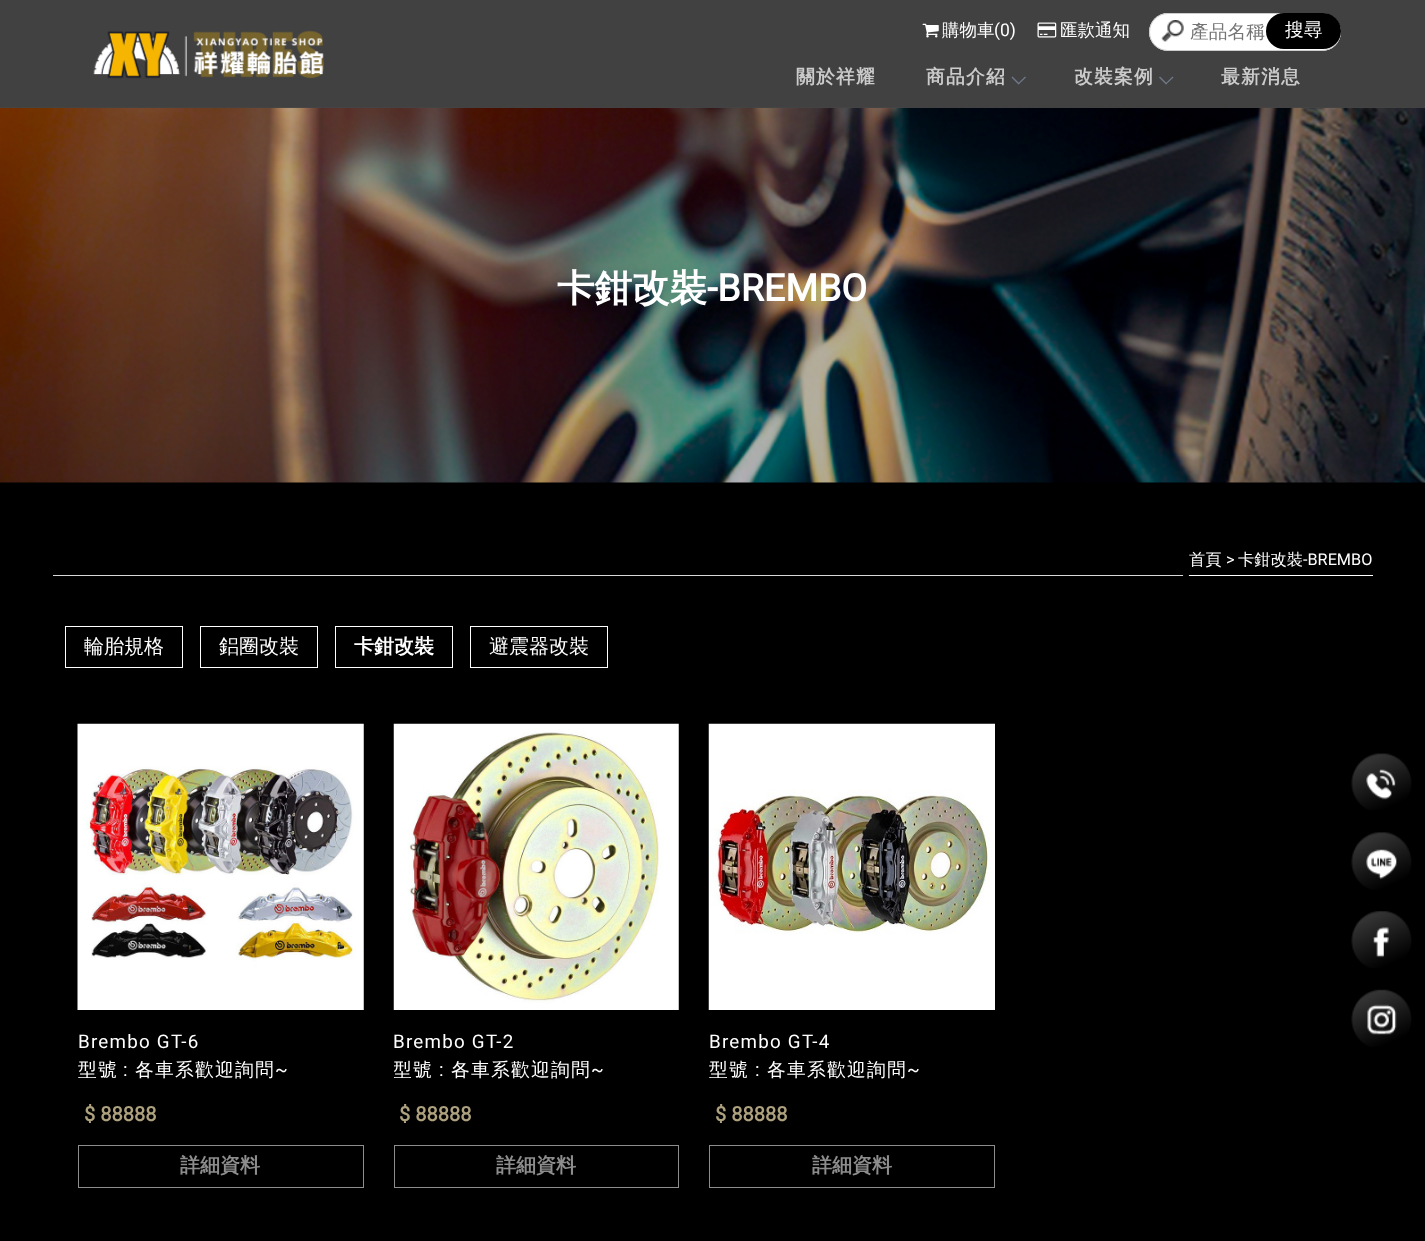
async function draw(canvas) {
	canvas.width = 1425;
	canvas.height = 1241;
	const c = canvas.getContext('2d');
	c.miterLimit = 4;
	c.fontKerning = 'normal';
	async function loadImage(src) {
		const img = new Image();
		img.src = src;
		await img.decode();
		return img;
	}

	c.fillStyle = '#000';
	c.fillRect(0, 0, 1425, 1241);
	c.drawImage(await loadImage('img5.png'), 0, 107, 1425, 376);
	c.fillStyle = '#484848e6';
	c.fillRect(0, 0, 1425, 108);
	c.drawImage(await loadImage('img1.png'), 93, 30, 231, 49);
	c.drawImage(await loadImage('img2.png'), 922, 23, 17, 15);
	c.font = '500 17.5px WenQuanYi Zen Hei';
	c.fillStyle = '#fff';
	c.fillText('購物車', 942, 36);
	c.font = '17.5px Roboto';
	c.fillText('(0)', 994, 36);
	c.drawImage(await loadImage('img3.png'), 1037, 22, 20, 16);
	c.font = '500 17.5px WenQuanYi Zen Hei';
	c.fillText('匯款通知', 1060, 36);
	c.beginPath();
	c.roundRect(1149, 13, 192, 38, 19);
	c.fill();
	c.drawImage(await loadImage('img4.png'), 1161, 20, 23, 22);
	c.beginPath();
	c.roundRect(1149.5, 13.5, 191, 37, 18.5);
	c.strokeStyle = '#ccc';
	c.stroke();
	c.font = '500 18.75px WenQuanYi Zen Hei';
	c.fillStyle = '#757575';
	c.fillText('產品名稱', 1190, 38);
	c.fillStyle = '#000';
	c.beginPath();
	c.roundRect(1266, 13, 75, 36, 18);
	c.fill();
	c.fillStyle = '#fff';
	c.fillText('搜尋', 1285, 36);
	c.letterSpacing = '1.25px';
	c.font = 'bold 18.75px WenQuanYi Zen Hei';
	c.fillStyle = '#cbcbcb';
	c.fillText('關於祥耀', 796, 83);
	c.fillText('商品介紹', 926, 83);
	c.fillStyle = '#70798b';
	c.beginPath();
	c.moveTo(1025, 76.5);
	c.lineTo(1026, 77.5);
	c.lineTo(1018.5, 84.5);
	c.lineTo(1018, 83.5);
	c.closePath();
	c.fill();
	c.beginPath();
	c.moveTo(1012.5, 76.5);
	c.lineTo(1019.5, 83.5);
	c.lineTo(1018.5, 84.5);
	c.lineTo(1011.5, 77.5);
	c.closePath();
	c.fill();
	c.fillStyle = '#cbcbcb';
	c.fillText('改裝案例', 1074, 83);
	c.fillStyle = '#70798b';
	c.beginPath();
	c.moveTo(1172.5, 76.5);
	c.lineTo(1173.5, 77.5);
	c.lineTo(1166, 84.5);
	c.lineTo(1165.5, 83.5);
	c.closePath();
	c.fill();
	c.beginPath();
	c.moveTo(1160, 76.5);
	c.lineTo(1167, 83.5);
	c.lineTo(1166, 84.5);
	c.lineTo(1159, 77.5);
	c.closePath();
	c.fill();
	c.fillStyle = '#cbcbcb';
	c.fillText('最新消息', 1221, 83);
	c.letterSpacing = '0px';
	c.font = 'bold 37.5px WenQuanYi Zen Hei';
	c.fillStyle = '#fff';
	c.fillText('卡鉗改裝', 557, 301);
	c.font = 'bold 37.5px Roboto';
	c.fillText('-BREMBO', 707, 301);
	c.fillStyle = '#d9d9d9';
	c.fillRect(53, 575, 1130, 1);
	c.fillStyle = '#fff';
	c.fillRect(1183, 575, 190, 1);
	c.font = '500 16.25px WenQuanYi Zen Hei';
	c.fillText('首頁', 1189, 565);
	c.font = '16.25px Roboto';
	c.fillText('>', 1226, 565);
	c.font = '500 16.25px WenQuanYi Zen Hei';
	c.fillText('卡鉗改裝', 1238, 565);
	c.font = '16.25px Roboto';
	c.fillText('-BREMBO', 1303, 565);
	c.fillStyle = '#000';
	c.beginPath();
	c.arc(1186, 576, 3, 0, 2 * Math.PI);
	c.fill();
	c.strokeStyle = '#fff';
	c.strokeRect(65.5, 626.5, 117, 41);
	c.font = '500 20px WenQuanYi Zen Hei';
	c.fillStyle = '#fff';
	c.fillText('輪胎規格', 84, 653);
	c.strokeRect(200.5, 626.5, 117, 41);
	c.fillText('鋁圈改裝', 219, 653);
	c.strokeRect(335.5, 626.5, 117, 41);
	c.font = 'bold 20px WenQuanYi Zen Hei';
	c.fillText('卡鉗改裝', 354, 653);
	c.strokeRect(470.5, 626.5, 137, 41);
	c.font = '500 20px WenQuanYi Zen Hei';
	c.fillText('避震器改裝', 489, 653);
	c.drawImage(await loadImage('img6.png'), 77, 723, 287, 287);
	c.letterSpacing = '1.25px';
	c.font = '18.75px Roboto';
	c.fillText('Brembo GT-6', 78, 1048);
	c.save();
	c.beginPath();
	c.rect(78, 1029, 286, 55);
	c.clip();
	c.font = '500 18.75px WenQuanYi Zen Hei';
	c.fillText('型號', 78, 1076);
	c.restore();
	c.fillText(':', 123, 1076);
	c.font = '500 18.75px WenQuanYi Zen Hei';
	c.fillText('各車系歡迎詢問', 135, 1076);
	c.font = '18.75px Roboto';
	c.fillText('~', 275, 1076);
	c.letterSpacing = '0px';
	c.font = 'bold 20px Roboto';
	c.fillStyle = '#ada17e';
	c.fillText('$ 88888', 84, 1121);
	c.strokeStyle = '#8d8d8d';
	c.strokeRect(78.5, 1145.5, 285, 42);
	c.font = 'bold 20px WenQuanYi Zen Hei';
	c.fillStyle = '#8d8d8d';
	c.fillText('詳細資料', 180, 1172);
	c.drawImage(await loadImage('img7.png'), 393, 723, 286, 287);
	c.letterSpacing = '1.25px';
	c.font = '18.75px Roboto';
	c.fillStyle = '#fff';
	c.fillText('Brembo GT-2', 393, 1048);
	c.save();
	c.beginPath();
	c.rect(394, 1029, 285, 55);
	c.clip();
	c.font = '500 18.75px WenQuanYi Zen Hei';
	c.fillText('型號', 393, 1076);
	c.restore();
	c.fillText(':', 439, 1076);
	c.font = '500 18.75px WenQuanYi Zen Hei';
	c.fillText('各車系歡迎詢問', 451, 1076);
	c.font = '18.75px Roboto';
	c.fillText('~', 591, 1076);
	c.letterSpacing = '0px';
	c.font = 'bold 20px Roboto';
	c.fillStyle = '#ada17e';
	c.fillText('$ 88888', 399, 1121);
	c.strokeRect(394.5, 1145.5, 284, 42);
	c.font = 'bold 20px WenQuanYi Zen Hei';
	c.fillStyle = '#8d8d8d';
	c.fillText('詳細資料', 496, 1172);
	c.drawImage(await loadImage('img8.png'), 708, 723, 287, 287);
	c.letterSpacing = '1.25px';
	c.font = '18.75px Roboto';
	c.fillStyle = '#fff';
	c.fillText('Brembo GT-4', 709, 1048);
	c.font = '500 18.75px WenQuanYi Zen Hei';
	c.fillText('型號', 709, 1076);
	c.font = '18.75px Roboto';
	c.fillText(':', 755, 1076);
	c.font = '500 18.75px WenQuanYi Zen Hei';
	c.fillText('各車系歡迎詢問', 767, 1076);
	c.font = '18.75px Roboto';
	c.fillText('~', 907, 1076);
	c.letterSpacing = '0px';
	c.font = 'bold 20px Roboto';
	c.fillStyle = '#ada17e';
	c.fillText('$ 88888', 715, 1121);
	c.strokeRect(709.5, 1145.5, 285, 42);
	c.font = 'bold 20px WenQuanYi Zen Hei';
	c.fillStyle = '#8d8d8d';
	c.fillText('詳細資料', 812, 1172);
	c.drawImage(await loadImage('img9.png'), 1351, 753, 61, 57);
	c.drawImage(await loadImage('img10.png'), 1351, 832, 61, 58);
	c.drawImage(await loadImage('img11.png'), 1351, 911, 61, 57);
	c.drawImage(await loadImage('img12.png'), 1351, 989, 61, 58);
}

draw(document.querySelector('canvas'));
